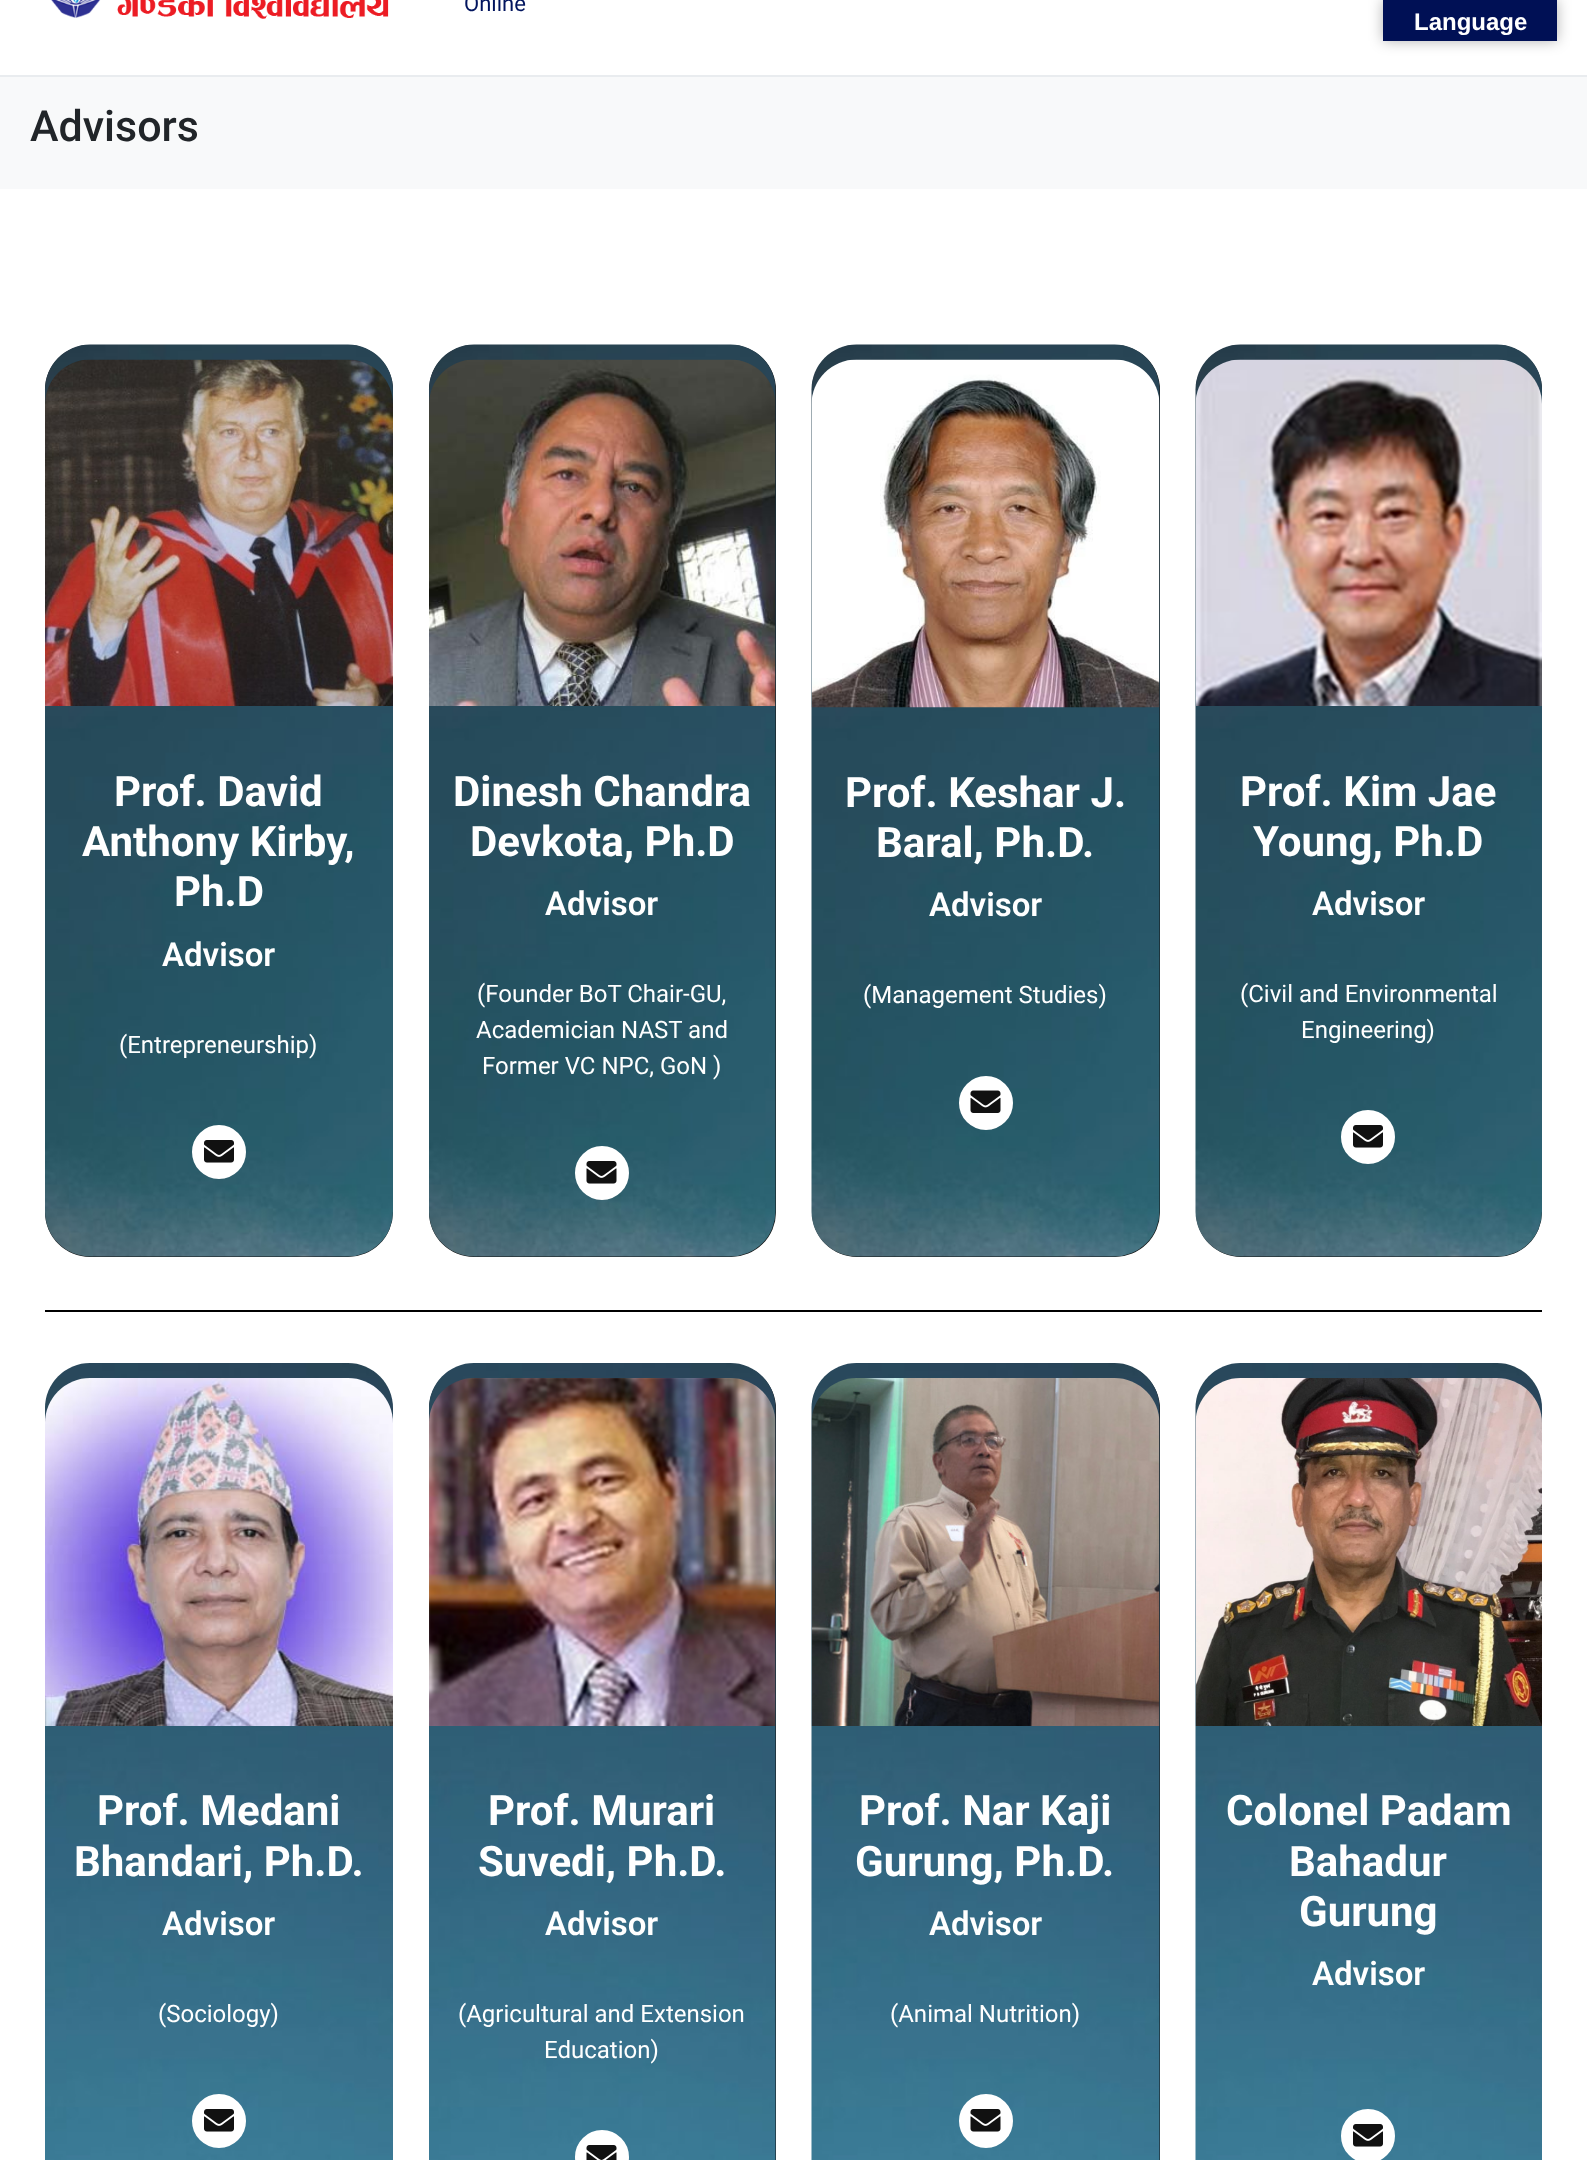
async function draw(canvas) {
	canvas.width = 1587;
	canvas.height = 2160;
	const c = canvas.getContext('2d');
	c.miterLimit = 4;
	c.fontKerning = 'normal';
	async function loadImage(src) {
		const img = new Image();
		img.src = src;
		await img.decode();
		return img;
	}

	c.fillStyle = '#fff';
	c.fillRect(0, 0, 1587, 2160);
	c.fillStyle = '#e9ecef';
	c.fillRect(0, 75, 1587, 2);
	c.drawImage(await loadImage('img1.png'), 51, 0, 338, 19);
	c.font = '22px Roboto';
	c.fillStyle = '#01145e';
	c.fillText('Online', 464, 11);
	c.fillStyle = '#f8f9fa';
	c.fillRect(0, 77, 1587, 112);
	c.font = '500 43px Roboto';
	c.fillStyle = '#212529';
	c.fillText('Advisors', 30, 141);
	c.fillStyle = '#111';
	c.beginPath();
	c.roundRect(45, 345, 348, 912, 45);
	c.fill();
	c.drawImage(await loadImage('img2.png'), 44, 344, 349, 913);
	c.drawImage(await loadImage('img3.png'), 45, 359, 348, 347);
	c.font = 'bold 42px Roboto';
	c.fillStyle = '#fff';
	for (const [text, x, y] of [
		['Prof. David', 114, 806],
		['Anthony Kirby,', 82, 856],
		['Ph.D', 174, 906],
	]) {
		c.fillText(text, x, y);
	}
	c.font = '600 33px Roboto';
	c.fillText('Advisor', 162, 966);
	c.font = '24px Roboto';
	c.fillText('(Entrepreneurship)', 119, 1053);
	c.beginPath();
	c.arc(219, 1152, 25.5, 0, 2 * Math.PI);
	c.fill();
	c.strokeStyle = '#fff';
	c.lineWidth = 3;
	c.stroke();
	c.drawImage(await loadImage('img4.png'), 204, 1140, 30, 23);
	c.fillStyle = '#111';
	c.beginPath();
	c.roundRect(429, 345, 347, 912, 45);
	c.fill();
	c.drawImage(await loadImage('img5.png'), 428, 344, 348, 913);
	c.drawImage(await loadImage('img6.png'), 429, 359, 347, 347);
	c.font = 'bold 42px Roboto';
	c.fillStyle = '#fff';
	c.fillText('Dinesh Chandra', 453, 806);
	c.fillText('Devkota, Ph.D', 470, 856);
	c.font = '600 33px Roboto';
	c.fillText('Advisor', 545, 915);
	c.font = '24px Roboto';
	for (const [text, x, y] of [
		['(Founder BoT Chair-GU,', 477, 1002],
		['Academician NAST and', 476, 1038],
		['Former VC NPC, GoN )', 482, 1074],
	]) {
		c.fillText(text, x, y);
	}
	c.beginPath();
	c.arc(602, 1173, 25.5, 0, 2 * Math.PI);
	c.fill();
	c.stroke();
	c.drawImage(await loadImage('img7.png'), 586, 1161, 31, 23);
	c.fillStyle = '#111';
	c.beginPath();
	c.roundRect(812, 345, 348, 912, 45);
	c.fill();
	c.drawImage(await loadImage('img8.png'), 811, 344, 349, 913);
	c.drawImage(await loadImage('img9.png'), 811, 359, 349, 349);
	c.font = 'bold 42px Roboto';
	c.fillStyle = '#fff';
	c.fillText('Prof. Keshar J.', 845, 807);
	c.fillText('Baral, Ph.D.', 876, 857);
	c.font = '600 33px Roboto';
	c.fillText('Advisor', 929, 916);
	c.font = '24px Roboto';
	c.fillText('(Management Studies)', 863, 1003);
	c.beginPath();
	c.arc(986, 1103, 25.5, 0, 2 * Math.PI);
	c.fill();
	c.stroke();
	c.drawImage(await loadImage('img10.png'), 970, 1090, 31, 23);
	c.fillStyle = '#111';
	c.beginPath();
	c.roundRect(1196, 345, 346, 912, 45);
	c.fill();
	c.drawImage(await loadImage('img11.png'), 1195, 344, 347, 913);
	c.drawImage(await loadImage('img12.png'), 1195, 359, 347, 347);
	c.font = 'bold 42px Roboto';
	c.fillStyle = '#fff';
	c.fillText('Prof. Kim Jae', 1240, 806);
	c.fillText('Young, Ph.D', 1253, 856);
	c.font = '600 33px Roboto';
	c.fillText('Advisor', 1312, 915);
	c.font = '24px Roboto';
	c.fillText('(Civil and Environmental', 1240, 1002);
	c.fillText('Engineering)', 1301, 1038);
	c.beginPath();
	c.arc(1368, 1137, 25.5, 0, 2 * Math.PI);
	c.fill();
	c.stroke();
	c.drawImage(await loadImage('img4.png'), 1353, 1125, 30, 23);
	c.fillStyle = '#000';
	c.fillRect(45, 1310, 1497, 2);
	c.drawImage(await loadImage('img13.png'), 45, 1363, 348, 797);
	c.drawImage(await loadImage('img14.png'), 45, 1378, 348, 348);
	c.font = 'bold 42px Roboto';
	c.fillStyle = '#fff';
	c.fillText('Prof. Medani', 97, 1825);
	c.fillText('Bhandari, Ph.D.', 74, 1876);
	c.font = '600 33px Roboto';
	c.fillText('Advisor', 162, 1935);
	c.font = '24px Roboto';
	c.fillText('(Sociology)', 158, 2022);
	c.beginPath();
	c.arc(219, 2121, 25.5, 0, 2 * Math.PI);
	c.fill();
	c.stroke();
	c.drawImage(await loadImage('img4.png'), 204, 2109, 30, 23);
	c.fillStyle = '#111';
	c.beginPath();
	c.roundRect(429, 1364, 347, 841, 45);
	c.fill();
	c.drawImage(await loadImage('img15.png'), 429, 1363, 347, 797);
	c.drawImage(await loadImage('img16.png'), 429, 1378, 347, 348);
	c.font = 'bold 42px Roboto';
	c.fillStyle = '#fff';
	c.fillText('Prof. Murari', 488, 1825);
	c.fillText('Suvedi, Ph.D.', 478, 1876);
	c.font = '600 33px Roboto';
	c.fillText('Advisor', 545, 1935);
	c.font = '24px Roboto';
	c.fillText('(Agricultural and Extension', 458, 2022);
	c.fillText('Education)', 544, 2058);
	c.beginPath();
	c.arc(602, 2157, 25.5, 0, 2 * Math.PI);
	c.fill();
	c.stroke();
	c.drawImage(await loadImage('img17.png'), 586, 2145, 31, 15);
	c.fillStyle = '#111';
	c.beginPath();
	c.roundRect(812, 1364, 348, 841, 45);
	c.fill();
	c.drawImage(await loadImage('img18.png'), 811, 1363, 349, 797);
	c.drawImage(await loadImage('img19.png'), 811, 1378, 349, 348);
	c.font = 'bold 42px Roboto';
	c.fillStyle = '#fff';
	c.fillText('Prof. Nar Kaji', 859, 1825);
	c.fillText('Gurung, Ph.D.', 855, 1876);
	c.font = '600 33px Roboto';
	c.fillText('Advisor', 929, 1935);
	c.font = '24px Roboto';
	c.fillText('(Animal Nutrition)', 890, 2022);
	c.beginPath();
	c.arc(986, 2121, 25.5, 0, 2 * Math.PI);
	c.fill();
	c.stroke();
	c.drawImage(await loadImage('img7.png'), 970, 2109, 31, 23);
	c.drawImage(await loadImage('img20.png'), 1195, 1363, 347, 797);
	c.drawImage(await loadImage('img21.png'), 1195, 1378, 347, 348);
	c.font = 'bold 42px Roboto';
	for (const [text, x, y] of [
		['Colonel Padam', 1226, 1825],
		['Bahadur', 1289, 1876],
		['Gurung', 1299, 1926],
	]) {
		c.fillText(text, x, y);
	}
	c.font = '600 33px Roboto';
	c.fillText('Advisor', 1312, 1985);
	c.beginPath();
	c.arc(1368, 2136, 25.5, 0, 2 * Math.PI);
	c.fill();
	c.stroke();
	c.drawImage(await loadImage('img4.png'), 1353, 2124, 30, 23);
	c.fillStyle = '#0000004d';
	c.filter = 'blur(7px)';
	c.beginPath();
	c.rect(1383, 0, 174, 41);
	c.fill();
	c.filter = 'none';
	c.fillStyle = '#001055';
	c.fillRect(1383, 0, 174, 41);
	c.font = 'bold 24px Liberation Sans';
	c.fillStyle = '#fff';
	c.fillText('Language', 1414, 30);
}

draw(document.querySelector('canvas'));
